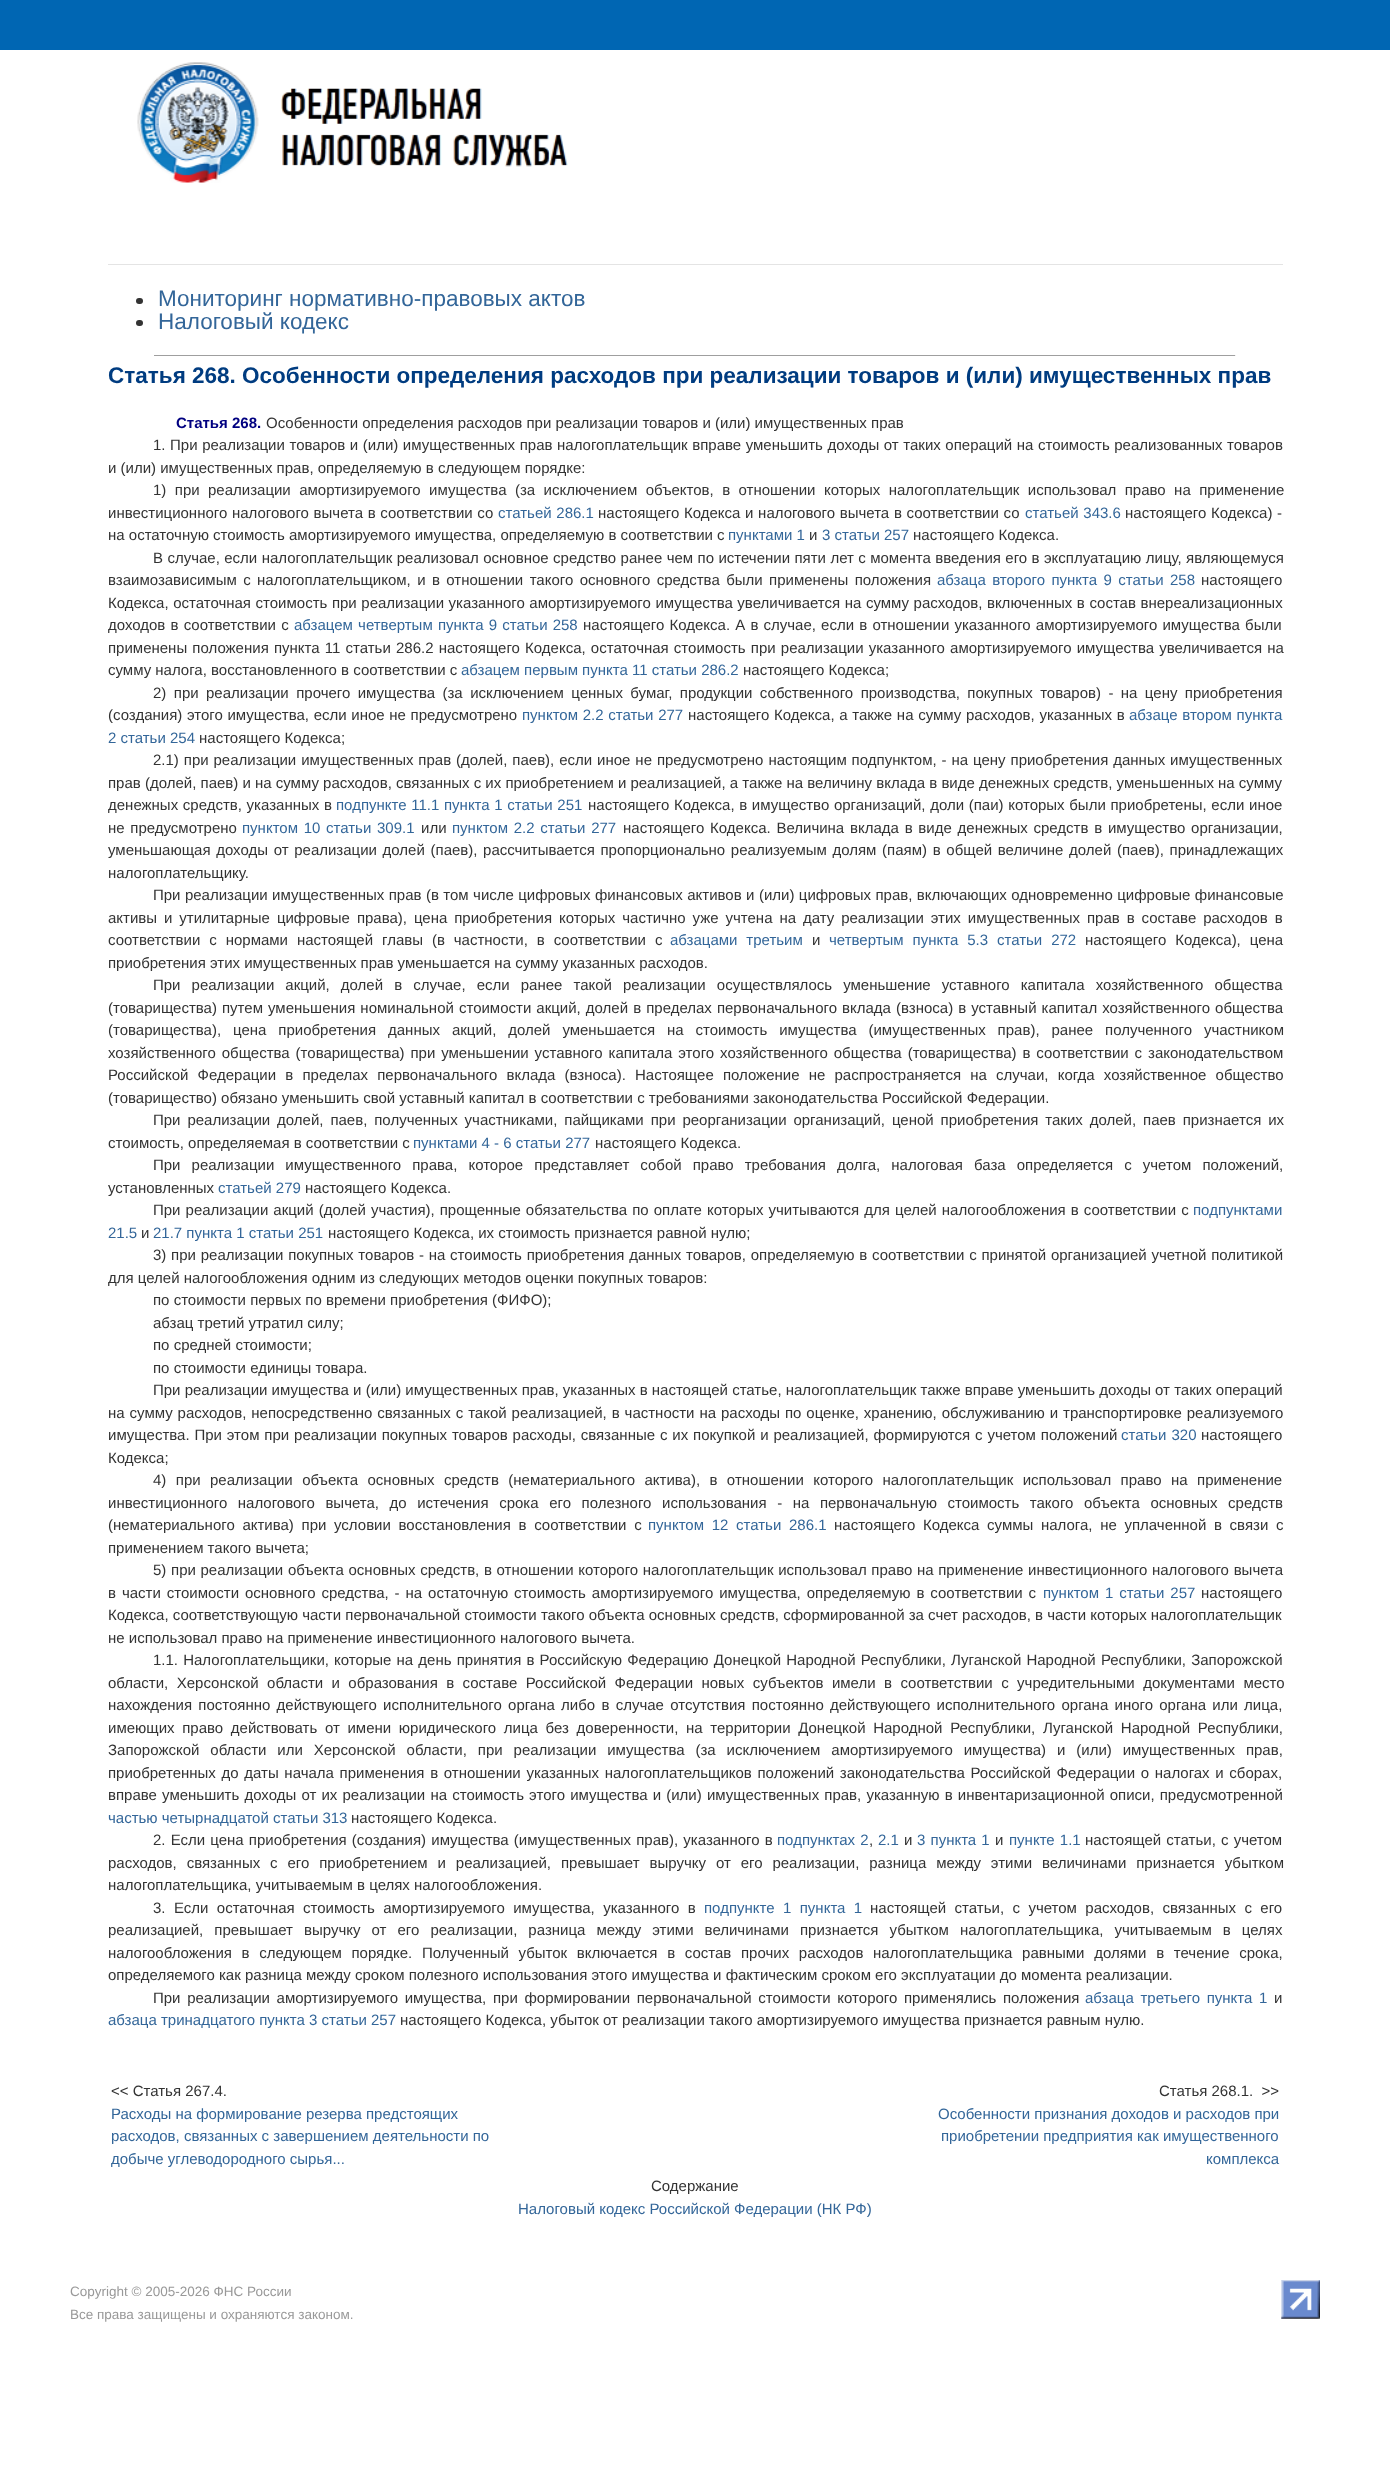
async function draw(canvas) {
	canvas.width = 1390;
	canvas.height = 2487;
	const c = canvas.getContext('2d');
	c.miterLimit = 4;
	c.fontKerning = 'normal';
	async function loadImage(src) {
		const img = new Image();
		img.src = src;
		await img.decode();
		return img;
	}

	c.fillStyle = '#fff';
	c.fillRect(0, 0, 1390, 2487);
	c.fillStyle = '#0066b3';
	c.fillRect(0, 0, 1390, 50);
	c.fillStyle = '#e4e4e4';
	c.fillRect(108, 264, 1175, 1);
	c.drawImage(await loadImage('img1.png'), 137, 62, 431, 121);
	c.fillStyle = '#333';
	c.beginPath();
	c.roundRect(136, 298, 7, 6, 3);
	c.fill();
	c.font = '22.5px Liberation Sans';
	c.fillStyle = '#369';
	c.fillText('Мониторинг нормативно-правовых актов', 158, 306);
	c.fillStyle = '#333';
	c.beginPath();
	c.roundRect(136, 320, 7, 6, 3);
	c.fill();
	c.fillStyle = '#369';
	c.fillText('Налоговый кодекс', 158, 329);
	c.fillStyle = '#9f9f9f';
	c.fillRect(154, 355, 1082, 1);
	c.fillStyle = '#eee';
	c.fillRect(1235, 355, 1, 1);
	c.font = 'bold 22.5px Liberation Sans';
	c.fillStyle = '#003c80';
	c.fillText('Статья 268. Особенности определения расходов при реализации товаров и (или) имущественных прав', 108, 383);
	c.font = 'bold 15px Liberation Sans';
	c.fillStyle = '#000080';
	c.fillText('Статья 268.', 176, 428);
	c.font = '15px Liberation Sans';
	c.fillStyle = '#333';
	c.fillText('Особенности определения расходов при реализации товаров и (или) имущественных прав', 266, 428);
	c.wordSpacing = '0.4px';
	c.fillText('1. При реализации товаров и (или) имущественных прав налогоплательщик вправе уменьшить доходы от таких операций на стоимость реализованных товаров', 153, 450);
	c.wordSpacing = '0px';
	c.fillText('и (или) имущественных прав, определяемую в следующем порядке:', 108, 473);
	c.wordSpacing = '4.25px';
	c.fillText('1) при реализации амортизируемого имущества (за исключением объектов, в отношении которых налогоплательщик использовал право на применение', 153, 495);
	c.wordSpacing = '0.5px';
	c.fillText('инвестиционного налогового вычета в соответствии со', 108, 518);
	c.fillStyle = '#369';
	c.fillText('статьей 286.1', 498, 518);
	c.fillStyle = '#333';
	c.fillText('настоящего Кодекса и налогового вычета в соответствии со', 598, 518);
	c.fillStyle = '#369';
	c.fillText('статьей 343.6', 1025, 518);
	c.fillStyle = '#333';
	c.fillText('настоящего Кодекса) -', 1125, 518);
	c.wordSpacing = '0px';
	c.fillText('на остаточную стоимость амортизируемого имущества, определяемую в соответствии с', 108, 540);
	c.fillStyle = '#369';
	c.fillText('пунктами 1', 728, 540);
	c.fillStyle = '#333';
	c.fillText('и', 809, 540);
	c.fillStyle = '#369';
	c.fillText('3 статьи 257', 822, 540);
	c.fillStyle = '#333';
	c.fillText('настоящего Кодекса.', 913, 540);
	c.wordSpacing = '0.25px';
	c.fillText('В случае, если налогоплательщик реализовал основное средство ранее чем по истечении пяти лет с момента введения его в эксплуатацию лицу, являющемуся', 153, 563);
	c.wordSpacing = '2.25px';
	c.fillText('взаимозависимым с налогоплательщиком, и в отношении такого основного средства были применены положения', 108, 585);
	c.fillStyle = '#369';
	c.fillText('абзаца второго пункта 9 статьи 258', 937, 585);
	c.wordSpacing = '0px';
	c.fillStyle = '#333';
	c.fillText('настоящего', 1201, 585);
	c.wordSpacing = '0.4px';
	c.fillText('Кодекса, остаточная стоимость при реализации указанного амортизируемого имущества увеличивается на сумму расходов, включенных в состав внереализационных', 108, 608);
	c.wordSpacing = '1px';
	c.fillText('доходов в соответствии с', 108, 630);
	c.fillStyle = '#369';
	c.fillText('абзацем четвертым пункта 9 статьи 258', 294, 630);
	c.fillStyle = '#333';
	c.fillText('настоящего Кодекса. А в случае, если в отношении указанного амортизируемого имущества были', 583, 630);
	c.fillText('применены положения пункта 11 статьи 286.2 настоящего Кодекса, остаточная стоимость при реализации указанного амортизируемого имущества увеличивается на', 108, 653);
	c.wordSpacing = '0px';
	c.fillText('сумму налога, восстановленного в соответствии с', 108, 675);
	c.fillStyle = '#369';
	c.fillText('абзацем первым пункта 11 статьи 286.2', 461, 675);
	c.fillStyle = '#333';
	c.fillText('настоящего Кодекса;', 743, 675);
	c.wordSpacing = '3.25px';
	c.fillText('2) при реализации прочего имущества (за исключением ценных бумаг, продукции собственного производства, покупных товаров) - на цену приобретения', 153, 698);
	c.wordSpacing = '0.5px';
	c.fillText('(создания) этого имущества, если иное не предусмотрено', 108, 720);
	c.fillStyle = '#369';
	c.fillText('пунктом 2.2 статьи 277', 522, 720);
	c.fillStyle = '#333';
	c.fillText('настоящего Кодекса, а также на сумму расходов, указанных в', 688, 720);
	c.fillStyle = '#369';
	c.fillText('абзаце втором пункта', 1129, 720);
	c.wordSpacing = '0px';
	c.fillText('2 статьи 254', 108, 743);
	c.fillStyle = '#333';
	c.fillText('настоящего Кодекса;', 199, 743);
	c.wordSpacing = '0.75px';
	c.fillText('2.1) при реализации имущественных прав (долей, паев), если иное не предусмотрено настоящим подпунктом, - на цену приобретения данных имущественных', 153, 765);
	c.wordSpacing = '0px';
	c.fillText('прав (долей, паев) и на сумму расходов, связанных с их приобретением и реализацией, а также на величину вклада в виде денежных средств, уменьшенных на сумму', 108, 788);
	c.wordSpacing = '0.5px';
	c.fillText('денежных средств, указанных в', 108, 810);
	c.fillStyle = '#369';
	c.fillText('подпункте 11.1 пункта 1 статьи 251', 336, 810);
	c.fillStyle = '#333';
	c.fillText('настоящего Кодекса, в имущество организаций, доли (паи) которых были приобретены, если иное', 588, 810);
	c.wordSpacing = '1.5px';
	c.fillText('не предусмотрено', 108, 833);
	c.fillStyle = '#369';
	c.fillText('пунктом 10 статьи 309.1', 242, 833);
	c.wordSpacing = '0px';
	c.fillStyle = '#333';
	c.fillText('или', 421, 833);
	c.wordSpacing = '1.5px';
	c.fillStyle = '#369';
	c.fillText('пунктом 2.2 статьи 277', 452, 833);
	c.wordSpacing = '1.6px';
	c.fillStyle = '#333';
	c.fillText('настоящего Кодекса. Величина вклада в виде денежных средств в имущество организации,', 623, 833);
	c.wordSpacing = '1.5px';
	c.fillText('уменьшающая доходы от реализации долей (паев), рассчитывается пропорционально реализуемым долям (паям) в общей величине долей (паев), принадлежащих', 108, 855);
	c.wordSpacing = '0px';
	c.fillText('налогоплательщику.', 108, 878);
	c.wordSpacing = '0.25px';
	c.fillText('При реализации имущественных прав (в том числе цифровых финансовых активов и (или) цифровых прав, включающих одновременно цифровые финансовые', 153, 900);
	c.wordSpacing = '2.75px';
	c.fillText('активы и утилитарные цифровые права), цена приобретения которых частично уже учтена на дату реализации этих имущественных прав в составе расходов в', 108, 923);
	c.wordSpacing = '4.75px';
	c.fillText('соответствии с нормами настоящей главы (в частности, в соответствии с', 108, 945);
	c.fillStyle = '#369';
	c.fillText('абзацами третьим', 670, 945);
	c.wordSpacing = '0px';
	c.fillStyle = '#333';
	c.fillText('и', 812, 945);
	c.wordSpacing = '4.75px';
	c.fillStyle = '#369';
	c.fillText('четвертым пункта 5.3 статьи 272', 829, 945);
	c.fillStyle = '#333';
	c.fillText('настоящего Кодекса), цена', 1085, 945);
	c.wordSpacing = '0px';
	c.fillText('приобретения этих имущественных прав уменьшается на сумму указанных расходов.', 108, 968);
	c.wordSpacing = '6.9px';
	c.fillText('При реализации акций, долей в случае, если ранее такой реализации осуществлялось уменьшение уставного капитала хозяйственного общества', 153, 990);
	c.wordSpacing = '0.9px';
	c.fillText('(товарищества) путем уменьшения номинальной стоимости акций, долей в пределах первоначального вклада (взноса) в уставный капитал хозяйственного общества', 108, 1013);
	c.wordSpacing = '7.75px';
	c.fillText('(товарищества), цена приобретения данных акций, долей уменьшается на стоимость имущества (имущественных прав), ранее полученного участником', 108, 1035);
	c.wordSpacing = '1.75px';
	c.fillText('хозяйственного общества (товарищества) при уменьшении уставного капитала этого хозяйственного общества (товарищества) в соответствии с законодательством', 108, 1058);
	c.wordSpacing = '5px';
	c.fillText('Российской Федерации в пределах первоначального вклада (взноса). Настоящее положение не распространяется на случаи, когда хозяйственное общество', 108, 1080);
	c.wordSpacing = '0px';
	c.fillText('(товарищество) обязано уменьшить свой уставный капитал в соответствии с требованиями законодательства Российской Федерации.', 108, 1103);
	c.wordSpacing = '2.75px';
	c.fillText('При реализации долей, паев, полученных участниками, пайщиками при реорганизации организаций, ценой приобретения таких долей, паев признается их', 153, 1125);
	c.wordSpacing = '0px';
	c.fillText('стоимость, определяемая в соответствии с', 108, 1148);
	c.fillStyle = '#369';
	c.fillText('пунктами 4 - 6 статьи 277', 413, 1148);
	c.fillStyle = '#333';
	c.fillText('настоящего Кодекса.', 595, 1148);
	c.wordSpacing = '6.9px';
	c.fillText('При реализации имущественного права, которое представляет собой право требования долга, налоговая база определяется с учетом положений,', 153, 1170);
	c.wordSpacing = '0px';
	c.fillText('установленных', 108, 1193);
	c.fillStyle = '#369';
	c.fillText('статьей 279', 218, 1193);
	c.fillStyle = '#333';
	c.fillText('настоящего Кодекса.', 305, 1193);
	c.wordSpacing = '0.9px';
	c.fillText('При реализации акций (долей участия), прощенные обязательства по оплате которых учитываются для целей налогообложения в соответствии с', 153, 1215);
	c.wordSpacing = '0px';
	c.fillStyle = '#369';
	c.fillText('подпунктами', 1193, 1215);
	c.fillText('21.5', 108, 1238);
	c.fillStyle = '#333';
	c.fillText('и', 141, 1238);
	c.fillStyle = '#369';
	c.fillText('21.7 пункта 1 статьи 251', 153, 1238);
	c.fillStyle = '#333';
	c.fillText('настоящего Кодекса, их стоимость признается равной нулю;', 328, 1238);
	c.wordSpacing = '0.6px';
	c.fillText('3) при реализации покупных товаров - на стоимость приобретения данных товаров, определяемую в соответствии с принятой организацией учетной политикой', 153, 1260);
	c.wordSpacing = '0px';
	for (const [text, x, y] of [
		['для целей налогообложения одним из следующих методов оценки покупных товаров:', 108, 1283],
		['по стоимости первых по времени приобретения (ФИФО);', 153, 1305],
		['абзац третий утратил силу;', 153, 1328],
		['по средней стоимости;', 153, 1350],
		['по стоимости единицы товара.', 153, 1373],
		['При реализации имущества и (или) имущественных прав, указанных в настоящей статье, налогоплательщик также вправе уменьшить доходы от таких операций', 153, 1395],
	]) {
		c.fillText(text, x, y);
	}
	c.wordSpacing = '0.75px';
	c.fillText('на сумму расходов, непосредственно связанных с такой реализацией, в частности на расходы по оценке, хранению, обслуживанию и транспортировке реализуемого', 108, 1418);
	c.wordSpacing = '0.7px';
	c.fillText('имущества. При этом при реализации покупных товаров расходы, связанные с их покупкой и реализацией, формируются с учетом положений', 108, 1440);
	c.wordSpacing = '1px';
	c.fillStyle = '#369';
	c.fillText('статьи 320', 1121, 1440);
	c.wordSpacing = '0px';
	c.fillStyle = '#333';
	c.fillText('настоящего', 1201, 1440);
	c.fillText('Кодекса;', 108, 1463);
	c.wordSpacing = '5.25px';
	c.fillText('4) при реализации объекта основных средств (нематериального актива), в отношении которого налогоплательщик использовал право на применение', 153, 1485);
	c.wordSpacing = '6.4px';
	c.fillText('инвестиционного налогового вычета, до истечения срока его полезного использования - на первоначальную стоимость такого объекта основных средств', 108, 1508);
	c.wordSpacing = '3.5px';
	c.fillText('(нематериального актива) при условии восстановления в соответствии с', 108, 1530);
	c.fillStyle = '#369';
	c.fillText('пунктом 12 статьи 286.1', 648, 1530);
	c.fillStyle = '#333';
	c.fillText('настоящего Кодекса суммы налога, не уплаченной в связи с', 834, 1530);
	c.wordSpacing = '0px';
	c.fillText('применением такого вычета;', 108, 1553);
	c.wordSpacing = '0.5px';
	c.fillText('5) при реализации объекта основных средств, в отношении которого налогоплательщик использовал право на применение инвестиционного налогового вычета', 153, 1575);
	c.wordSpacing = '1.75px';
	c.fillText('в части стоимости основного средства, - на остаточную стоимость амортизируемого имущества, определяемую в соответствии с', 108, 1598);
	c.fillStyle = '#369';
	c.fillText('пунктом 1 статьи 257', 1043, 1598);
	c.wordSpacing = '0px';
	c.fillStyle = '#333';
	for (const [text, x, y] of [
		['настоящего', 1201, 1598],
		['Кодекса, соответствующую части первоначальной стоимости такого объекта основных средств, сформированной за счет расходов, в части которых налогоплательщик', 108, 1620],
		['не использовал право на применение инвестиционного налогового вычета.', 108, 1643],
	]) {
		c.fillText(text, x, y);
	}
	c.wordSpacing = '1px';
	c.fillText('1.1. Налогоплательщики, которые на день принятия в Российскую Федерацию Донецкой Народной Республики, Луганской Народной Республики, Запорожской', 153, 1665);
	c.wordSpacing = '4.25px';
	c.fillText('области, Херсонской области и образования в составе Российской Федерации новых субъектов имели в соответствии с учредительными документами место', 108, 1688);
	c.wordSpacing = '2.1px';
	c.fillText('нахождения постоянно действующего исполнительного органа либо в случае отсутствия постоянно действующего исполнительного органа иного органа или лица,', 108, 1710);
	c.wordSpacing = '3.5px';
	c.fillText('имеющих право действовать от имени юридического лица без доверенности, на территории Донецкой Народной Республики, Луганской Народной Республики,', 108, 1733);
	c.wordSpacing = '6.75px';
	c.fillText('Запорожской области или Херсонской области, при реализации имущества (за исключением амортизируемого имущества) и (или) имущественных прав,', 108, 1755);
	c.wordSpacing = '1.5px';
	c.fillText('приобретенных до даты начала применения в отношении указанных налогоплательщиков положений законодательства Российской Федерации о налогах и сборах,', 108, 1778);
	c.wordSpacing = '1px';
	c.fillText('вправе уменьшить доходы от их реализации на стоимость этого имущества и (или) имущественных прав, указанную в инвентаризационной описи, предусмотренной', 108, 1800);
	c.wordSpacing = '0px';
	c.fillStyle = '#369';
	c.fillText('частью четырнадцатой статьи 313', 108, 1823);
	c.fillStyle = '#333';
	c.fillText('настоящего Кодекса.', 351, 1823);
	c.wordSpacing = '1px';
	c.fillText('2. Если цена приобретения (создания) имущества (имущественных прав), указанного в', 153, 1845);
	c.fillStyle = '#369';
	c.fillText('подпунктах 2', 777, 1845);
	c.wordSpacing = '0px';
	c.fillStyle = '#333';
	c.fillText(',', 869, 1845);
	c.fillStyle = '#369';
	c.fillText('2.1', 878, 1845);
	c.fillStyle = '#333';
	c.fillText('и', 904, 1845);
	c.wordSpacing = '1px';
	c.fillStyle = '#369';
	c.fillText('3 пункта 1', 917, 1845);
	c.wordSpacing = '0px';
	c.fillStyle = '#333';
	c.fillText('и', 995, 1845);
	c.wordSpacing = '1px';
	c.fillStyle = '#369';
	c.fillText('пункте 1.1', 1009, 1845);
	c.fillStyle = '#333';
	c.fillText('настоящей статьи, с учетом', 1085, 1845);
	c.wordSpacing = '5.75px';
	c.fillText('расходов, связанных с его приобретением и реализацией, превышает выручку от его реализации, разница между этими величинами признается убытком', 108, 1868);
	c.wordSpacing = '0px';
	c.fillText('налогоплательщика, учитываемым в целях налогообложения.', 108, 1890);
	c.wordSpacing = '4.25px';
	c.fillText('3. Если остаточная стоимость амортизируемого имущества, указанного в', 153, 1913);
	c.fillStyle = '#369';
	c.fillText('подпункте 1 пункта 1', 704, 1913);
	c.fillStyle = '#333';
	c.fillText('настоящей статьи, с учетом расходов, связанных с его', 870, 1913);
	c.wordSpacing = '6.9px';
	c.fillText('реализацией, превышает выручку от его реализации, разница между этими величинами признается убытком налогоплательщика, учитываемым в целях', 108, 1935);
	c.wordSpacing = '5.5px';
	c.fillText('налогообложения в следующем порядке. Полученный убыток включается в состав прочих расходов налогоплательщика равными долями в течение срока,', 108, 1958);
	c.wordSpacing = '0px';
	c.fillText('определяемого как разница между сроком полезного использования этого имущества и фактическим сроком его эксплуатации до момента реализации.', 108, 1980);
	c.wordSpacing = '2.5px';
	c.fillText('При реализации амортизируемого имущества, при формировании первоначальной стоимости которого применялись положения', 153, 2003);
	c.fillStyle = '#369';
	c.fillText('абзаца третьего пункта 1', 1085, 2003);
	c.wordSpacing = '0px';
	c.fillStyle = '#333';
	c.fillText('и', 1274, 2003);
	c.fillStyle = '#369';
	c.fillText('абзаца тринадцатого пункта 3 статьи 257', 108, 2025);
	c.fillStyle = '#333';
	c.fillText('настоящего Кодекса, убыток от реализации такого амортизируемого имущества признается равным нулю.', 400, 2025);
	c.fillText('<< Статья 267.4.', 111, 2096);
	c.fillStyle = '#369';
	for (const [text, x, y] of [
		['Расходы на формирование резерва предстоящих', 111, 2119],
		['расходов, связанных с завершением деятельности по', 111, 2141],
		['добыче углеводородного сырья...', 111, 2164],
	]) {
		c.fillText(text, x, y);
	}
	c.fillStyle = '#333';
	c.fillText('Статья 268.1.  >>', 1159, 2096);
	c.fillStyle = '#369';
	for (const [text, x, y] of [
		['Особенности признания доходов и расходов при', 938, 2119],
		['приобретении предприятия как имущественного', 941, 2141],
		['комплекса', 1206, 2164],
	]) {
		c.fillText(text, x, y);
	}
	c.fillStyle = '#333';
	c.fillText('Содержание', 651, 2191);
	c.fillStyle = '#369';
	c.fillText('Налоговый кодекс Российской Федерации (НК РФ)', 518, 2214);
	c.font = '13.5px Liberation Sans';
	c.fillStyle = '#999';
	c.fillText('Copyright © 2005-2026 ФНС России', 70, 2296);
	c.fillText('Все права защищены и охраняются законом.', 70, 2319);
	c.drawImage(await loadImage('img2.png'), 1281, 2280, 39, 39);
}

draw(document.querySelector('canvas'));
